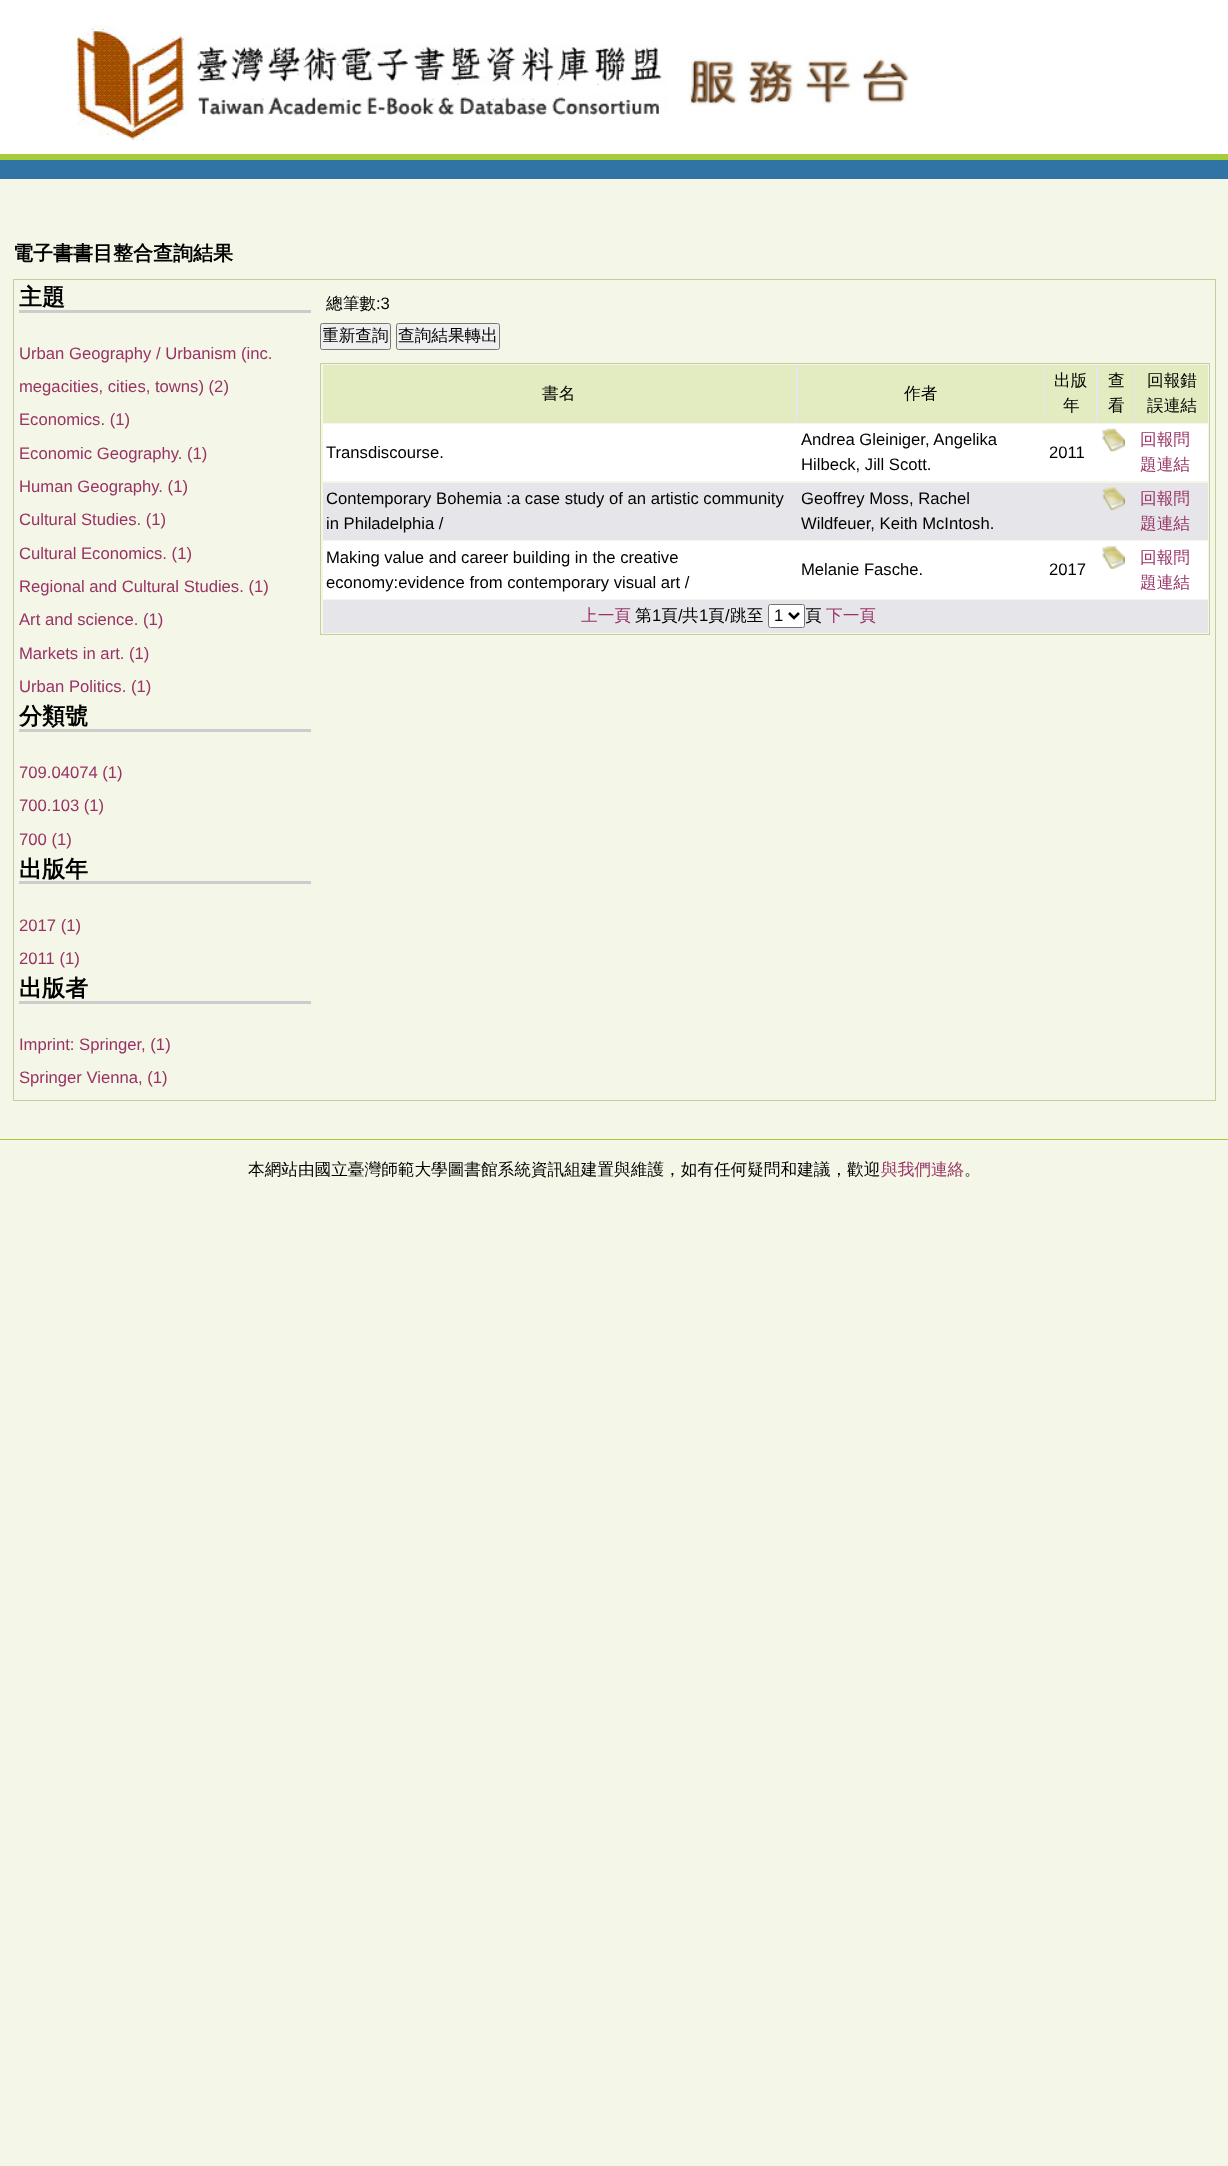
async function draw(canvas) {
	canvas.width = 1228;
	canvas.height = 2166;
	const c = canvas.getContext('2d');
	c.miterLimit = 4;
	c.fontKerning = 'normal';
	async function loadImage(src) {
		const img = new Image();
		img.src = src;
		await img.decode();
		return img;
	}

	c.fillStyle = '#f4f7e7';
	c.fillRect(0, 0, 1228, 2166);
	c.fillStyle = '#fff';
	c.fillRect(0, 0, 1228, 154);
	c.fillStyle = '#a6cd37';
	c.fillRect(0, 154, 1228, 6);
	c.drawImage(await loadImage('img1.png'), 77, 25, 832, 116);
	c.fillStyle = '#2f74a4';
	c.fillRect(0, 160, 1228, 19);
	c.font = 'bold 20px WenQuanYi Zen Hei';
	c.fillStyle = '#000';
	c.fillText('電子書書目整合查詢結果', 13, 260);
	c.strokeStyle = '#c5cf9b';
	c.strokeRect(13.5, 279.5, 1202, 821);
	c.fillStyle = '#ccc';
	c.fillRect(19, 310, 292, 3);
	c.font = 'bold 23px WenQuanYi Zen Hei';
	c.fillStyle = '#000';
	c.fillText('主題', 19, 305);
	c.font = '16.65px Liberation Sans';
	c.fillStyle = '#936';
	for (const [text, x, y] of [
		['Urban Geography / Urbanism (inc.', 19, 359],
		['megacities, cities, towns) (2)', 19, 392],
		['Economics. (1)', 19, 425],
		['Economic Geography. (1)', 19, 459],
		['Human Geography. (1)', 19, 492],
		['Cultural Studies. (1)', 19, 525],
		['Cultural Economics. (1)', 19, 559],
		['Regional and Cultural Studies. (1)', 19, 592],
		['Art and science. (1)', 19, 625],
		['Markets in art. (1)', 19, 659],
		['Urban Politics. (1)', 19, 692],
	]) {
		c.fillText(text, x, y);
	}
	c.fillStyle = '#ccc';
	c.fillRect(19, 729, 292, 3);
	c.font = 'bold 23px WenQuanYi Zen Hei';
	c.fillStyle = '#000';
	c.fillText('分類號', 19, 724);
	c.font = '16.65px Liberation Sans';
	c.fillStyle = '#936';
	for (const [text, x, y] of [
		['709.04074 (1)', 19, 778],
		['700.103 (1)', 19, 811],
		['700 (1)', 19, 845],
	]) {
		c.fillText(text, x, y);
	}
	c.fillStyle = '#ccc';
	c.fillRect(19, 881, 292, 3);
	c.font = 'bold 23px WenQuanYi Zen Hei';
	c.fillStyle = '#000';
	c.fillText('出版年', 19, 877);
	c.font = '16.65px Liberation Sans';
	c.fillStyle = '#936';
	c.fillText('2017 (1)', 19, 931);
	c.fillText('2011 (1)', 19, 964);
	c.fillStyle = '#ccc';
	c.fillRect(19, 1001, 292, 3);
	c.font = 'bold 23px WenQuanYi Zen Hei';
	c.fillStyle = '#000';
	c.fillText('出版者', 19, 996);
	c.font = '16.65px Liberation Sans';
	c.fillStyle = '#936';
	c.fillText('Imprint: Springer, (1)', 19, 1050);
	c.fillText('Springer Vienna, (1)', 19, 1083);
	c.font = '500 16.65px WenQuanYi Zen Hei';
	c.fillStyle = '#000';
	c.fillText('總筆數', 326, 309);
	c.font = '16.65px Liberation Sans';
	c.fillText(':3', 376, 309);
	c.fillStyle = '#efefef';
	c.beginPath();
	c.roundRect(320.5, 323.5, 70, 26, 2);
	c.fill();
	c.strokeStyle = '#767676';
	c.stroke();
	c.save();
	c.beginPath();
	c.rect(323, 325, 66, 23);
	c.clip();
	c.font = '500 16.65px WenQuanYi Zen Hei';
	c.fillStyle = '#000';
	c.fillText('重新查詢', 322, 341);
	c.restore();
	c.beginPath();
	c.roundRect(396.5, 323.5, 103, 26, 2);
	c.fill();
	c.stroke();
	c.font = '500 16.65px WenQuanYi Zen Hei';
	c.fillStyle = '#000';
	c.fillText('查詢結果轉出', 398, 341);
	c.strokeStyle = '#c5cf9b';
	c.strokeRect(320.5, 363.5, 889, 271);
	c.fillStyle = '#e6e6ea';
	c.fillRect(796, 365, 340, 58);
	c.fillStyle = '#e3ecc0';
	c.fillRect(323, 365, 473, 58);
	c.fillStyle = '#000';
	c.fillText('書名', 542, 399);
	c.fillStyle = '#e3ecc0';
	c.fillRect(798, 365, 246, 58);
	c.fillStyle = '#000';
	c.fillText('作者', 904, 399);
	c.fillStyle = '#e3ecc0';
	c.fillRect(1045, 365, 51, 58);
	c.fillStyle = '#000';
	c.fillText('出版', 1054, 386);
	c.fillText('年', 1063, 411);
	c.fillStyle = '#e3ecc0';
	c.fillRect(1098, 365, 37, 58);
	c.fillStyle = '#000';
	c.fillText('查', 1108, 386);
	c.fillText('看', 1108, 411);
	c.fillStyle = '#e3ecc0';
	c.fillRect(1136, 365, 72, 58);
	c.fillStyle = '#000';
	c.fillText('回報錯', 1147, 386);
	c.fillText('誤連結', 1147, 411);
	c.fillStyle = '#fff';
	c.fillRect(323, 424, 885, 57);
	c.font = '16.65px Liberation Sans';
	c.fillStyle = '#000';
	for (const [text, x, y] of [
		['Transdiscourse.', 326, 458],
		['Andrea Gleiniger, Angelika', 801, 445],
		['Hilbeck, Jill Scott.', 801, 470],
		['2011', 1049, 458],
	]) {
		c.fillText(text, x, y);
	}
	c.drawImage(await loadImage('img2.png'), 1102, 428, 23, 24);
	c.font = '500 16.65px WenQuanYi Zen Hei';
	c.fillStyle = '#936';
	c.fillText('回報問', 1140, 445);
	c.fillText('題連結', 1140, 470);
	c.fillStyle = '#e6e6ea';
	c.fillRect(323, 483, 885, 57);
	c.font = '16.65px Liberation Sans';
	c.fillStyle = '#000';
	for (const [text, x, y] of [
		['Contemporary Bohemia :a case study of an artistic community', 326, 504],
		['in Philadelphia /', 326, 529],
		['Geoffrey Moss, Rachel', 801, 504],
		['Wildfeuer, Keith McIntosh.', 801, 529],
	]) {
		c.fillText(text, x, y);
	}
	c.drawImage(await loadImage('img3.png'), 1102, 487, 23, 23);
	c.font = '500 16.65px WenQuanYi Zen Hei';
	c.fillStyle = '#936';
	c.fillText('回報問', 1140, 504);
	c.fillText('題連結', 1140, 529);
	c.fillStyle = '#fff';
	c.fillRect(323, 541, 885, 58);
	c.font = '16.65px Liberation Sans';
	c.fillStyle = '#000';
	for (const [text, x, y] of [
		['Making value and career building in the creative', 326, 563],
		['economy:evidence from contemporary visual art /', 326, 588],
		['Melanie Fasche.', 801, 575],
		['2017', 1049, 575],
	]) {
		c.fillText(text, x, y);
	}
	c.drawImage(await loadImage('img4.png'), 1102, 546, 23, 23);
	c.font = '500 16.65px WenQuanYi Zen Hei';
	c.fillStyle = '#936';
	c.fillText('回報問', 1140, 563);
	c.fillText('題連結', 1140, 588);
	c.fillStyle = '#e6e6ea';
	c.fillRect(323, 600, 885, 33);
	c.fillStyle = '#936';
	c.fillText('上一頁', 581, 621);
	c.fillStyle = '#000';
	c.fillText('第', 635, 621);
	c.font = '16.65px Liberation Sans';
	c.fillText('1', 652, 621);
	c.font = '500 16.65px WenQuanYi Zen Hei';
	c.fillText('頁', 661, 621);
	c.font = '16.65px Liberation Sans';
	c.fillText('/', 678, 621);
	c.font = '500 16.65px WenQuanYi Zen Hei';
	c.fillText('共', 682, 621);
	c.font = '16.65px Liberation Sans';
	c.fillText('1', 699, 621);
	c.font = '500 16.65px WenQuanYi Zen Hei';
	c.fillText('頁', 708, 621);
	c.font = '16.65px Liberation Sans';
	c.fillText('/', 725, 621);
	c.font = '500 16.65px WenQuanYi Zen Hei';
	c.fillText('跳至', 730, 621);
	c.fillStyle = '#fff';
	c.beginPath();
	c.roundRect(768.5, 604.5, 36, 23, 2);
	c.fill();
	c.strokeStyle = '#767676';
	c.stroke();
	c.beginPath();
	c.moveTo(789, 613);
	c.lineTo(794, 618);
	c.lineTo(799, 613);
	c.strokeStyle = '#000';
	c.lineWidth = 2.5;
	c.stroke();
	c.font = '16.65px Liberation Sans';
	c.fillStyle = '#000';
	c.fillText('1', 774, 621);
	c.font = '500 16.65px WenQuanYi Zen Hei';
	c.fillText('頁', 805, 621);
	c.fillStyle = '#936';
	c.fillText('下一頁', 826, 621);
	c.fillStyle = '#a6cd37';
	c.fillRect(0, 1139, 1228, 1);
	c.fillStyle = '#000';
	c.fillText('本網站由國立臺灣師範大學圖書館系統資訊組建置與維護，如有任何疑問和建議，歡迎', 248, 1175);
	c.fillStyle = '#936';
	c.fillText('與我們連絡', 881, 1175);
	c.fillStyle = '#000';
	c.fillText('。', 964, 1175);
}

draw(document.querySelector('canvas'));
